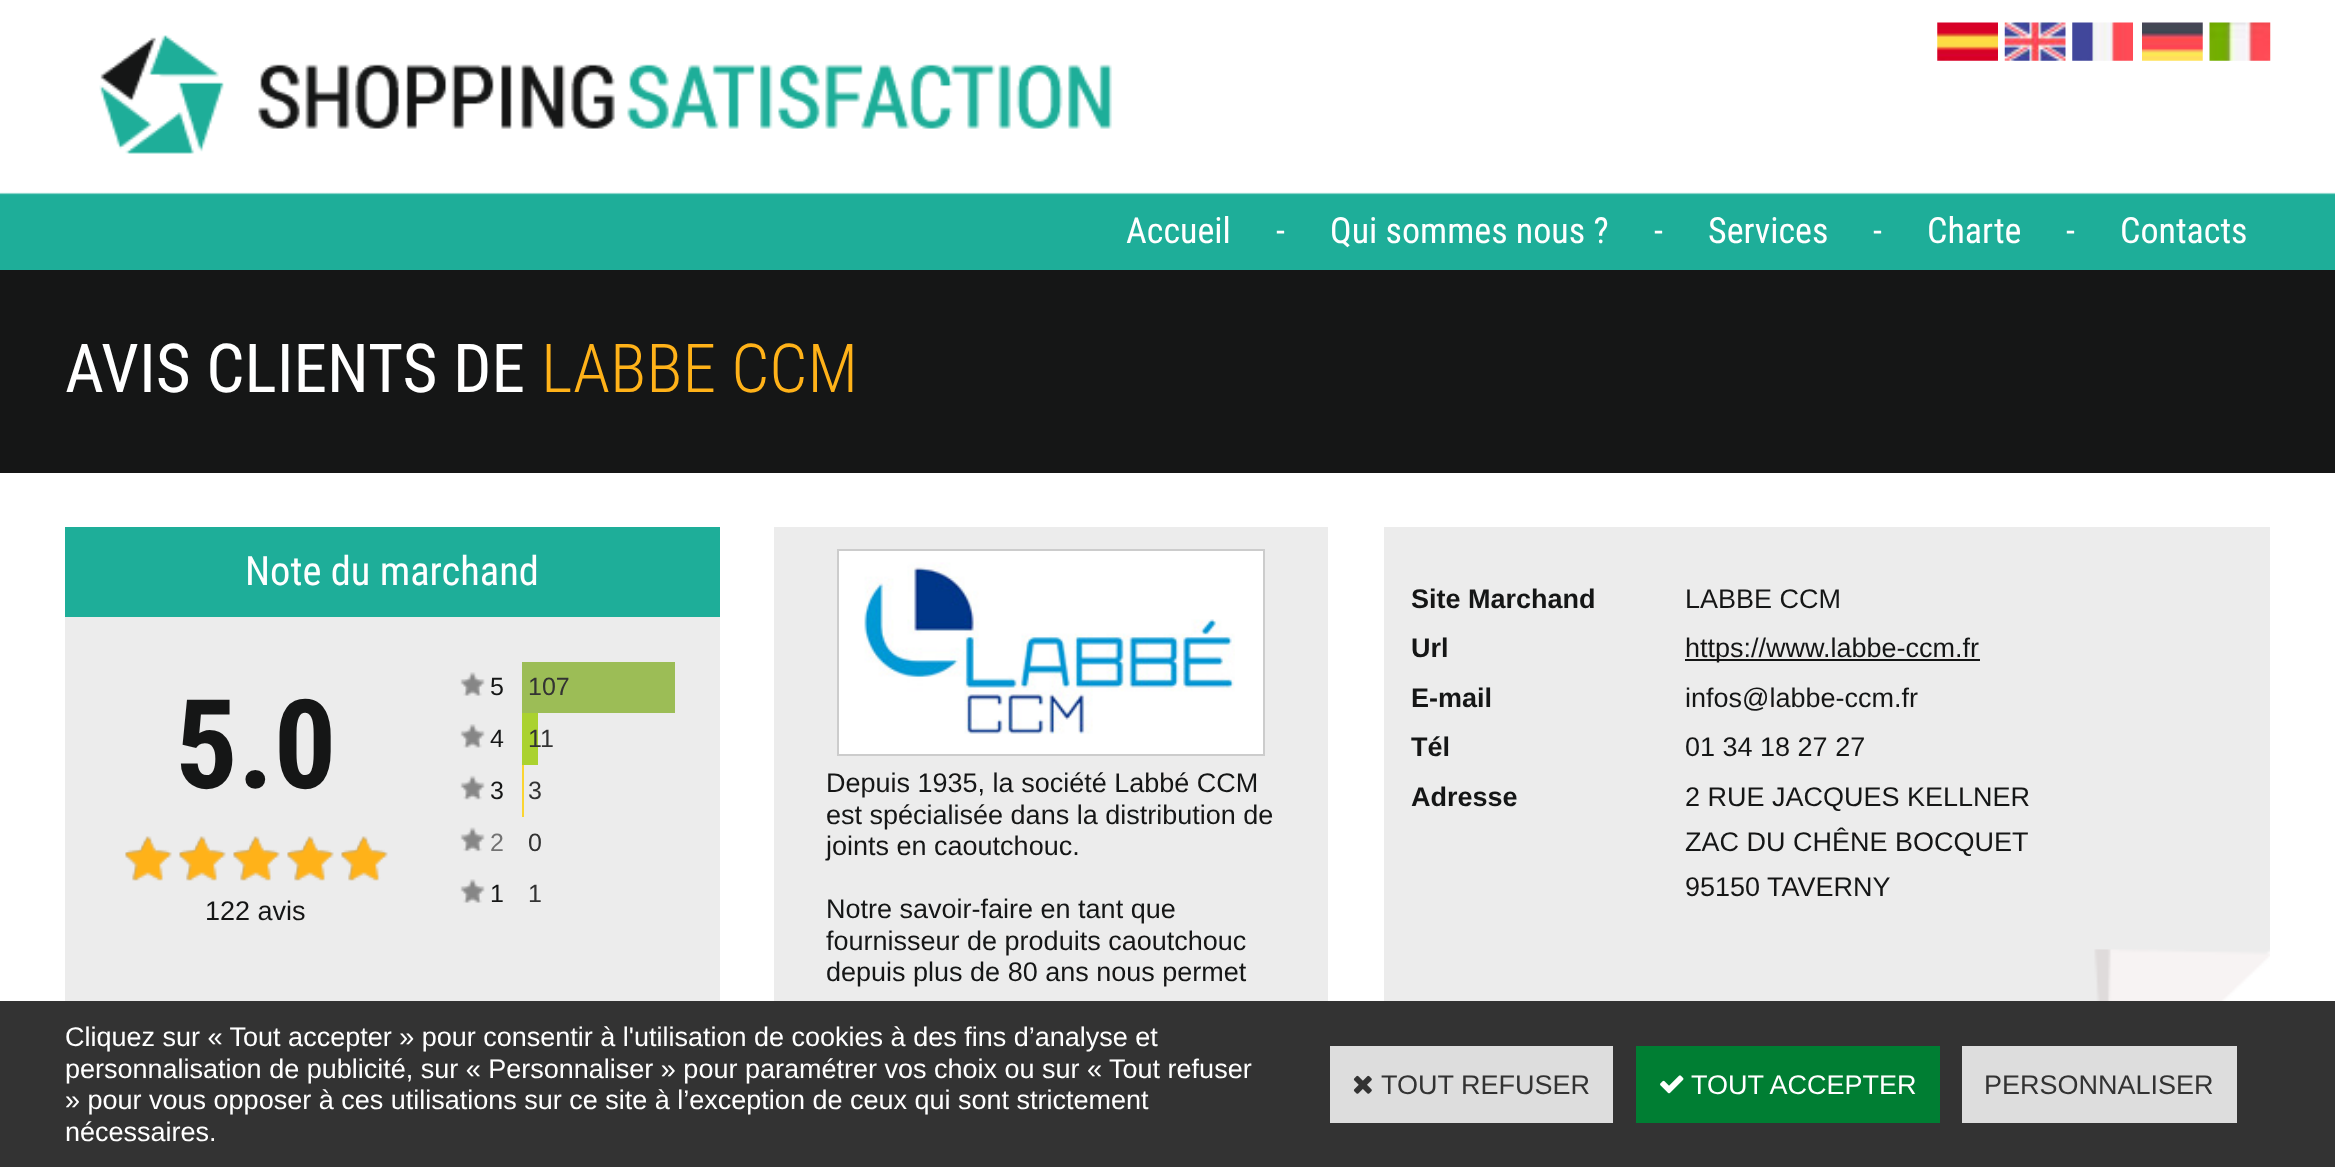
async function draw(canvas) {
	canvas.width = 2335;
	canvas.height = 1167;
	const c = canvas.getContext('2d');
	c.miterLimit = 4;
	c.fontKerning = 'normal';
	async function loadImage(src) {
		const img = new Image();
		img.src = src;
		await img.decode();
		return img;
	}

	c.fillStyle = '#fff';
	c.fillRect(0, 0, 2335, 1167);
	c.drawImage(await loadImage('img1.png'), 0, 192, 2335, 78);
	c.drawImage(await loadImage('img2.png'), 99, 35, 1013, 119);
	c.drawImage(await loadImage('img3.png'), 1937, 22, 61, 39);
	c.drawImage(await loadImage('img4.png'), 2004, 22, 62, 39);
	c.drawImage(await loadImage('img5.png'), 2072, 22, 61, 39);
	c.drawImage(await loadImage('img6.png'), 2142, 22, 61, 39);
	c.drawImage(await loadImage('img7.png'), 2209, 22, 62, 39);
	c.font = '36px Roboto Condensed';
	for (const [text, x, y] of [
		['Accueil', 1126, 243],
		['-', 1276, 243],
		['Qui sommes nous ?', 1330, 243],
		['-', 1654, 243],
		['Services', 1708, 243],
		['-', 1873, 243],
		['Charte', 1927, 243],
		['-', 2066, 243],
		['Contacts', 2120, 243],
	]) {
		c.fillText(text, x, y);
	}
	c.fillStyle = '#151616';
	c.fillRect(0, 270, 2335, 203);
	c.font = '67.5px Roboto Condensed';
	c.fillStyle = '#fff';
	c.fillText('AVIS CLIENTS DE', 65, 392);
	c.font = '300 67.5px Roboto Condensed';
	c.fillStyle = '#ffb219';
	c.fillText('LABBE CCM', 541, 392);
	c.fillStyle = '#ececec';
	c.fillRect(65, 617, 655, 384);
	c.fillStyle = '#1eae99';
	c.fillRect(65, 527, 655, 90);
	c.font = '40.5px Roboto Condensed';
	c.fillStyle = '#fff';
	c.fillText('Note du marchand', 245, 585);
	c.font = 'bold 124px Roboto Condensed';
	c.fillStyle = '#151616';
	c.fillText('5.0', 175, 788);
	c.drawImage(await loadImage('img8.png'), 125, 836, 263, 45);
	c.drawImage(await loadImage('img9.png'), 125, 836, 263, 45);
	c.font = '27px Liberation Sans';
	c.fillText('122 avis', 205, 920);
	c.fillStyle = '#9cbd56';
	c.fillRect(522, 662, 153, 51);
	c.drawImage(await loadImage('img10.png'), 460, 672, 25, 24);
	c.letterSpacing = '2px';
	c.font = '25px Liberation Sans';
	c.fillStyle = '#151616';
	c.fillText('5', 490, 695);
	c.letterSpacing = '0px';
	c.fillStyle = '#333';
	c.fillText('107', 528, 695);
	c.drawImage(await loadImage('img11.png'), 460, 724, 25, 24);
	c.letterSpacing = '2px';
	c.fillStyle = '#151616';
	c.fillText('4', 490, 747);
	c.fillStyle = '#aad22f';
	c.fillRect(522, 713, 16, 52);
	c.letterSpacing = '0px';
	c.fillStyle = '#333';
	c.fillText('11', 528, 747);
	c.drawImage(await loadImage('img12.png'), 460, 775, 25, 25);
	c.letterSpacing = '2px';
	c.fillStyle = '#151616';
	c.fillText('3', 490, 799);
	c.fillStyle = '#fbd531';
	c.fillRect(522, 765, 2, 52);
	c.letterSpacing = '0px';
	c.fillStyle = '#333';
	c.fillText('3', 528, 799);
	c.drawImage(await loadImage('img13.png'), 460, 827, 25, 25);
	c.letterSpacing = '2px';
	c.fillStyle = '#737373';
	c.fillText('2', 490, 851);
	c.letterSpacing = '0px';
	c.fillStyle = '#333';
	c.fillText('0', 528, 851);
	c.drawImage(await loadImage('img10.png'), 460, 879, 25, 24);
	c.letterSpacing = '2px';
	c.fillStyle = '#151616';
	c.fillText('1', 490, 902);
	c.letterSpacing = '0px';
	c.fillStyle = '#333';
	c.fillText('1', 528, 902);
	c.fillStyle = '#ececec';
	c.fillRect(774, 527, 554, 474);
	c.fillStyle = '#fff';
	c.beginPath();
	c.rect(838, 550, 426, 205);
	c.fill();
	c.strokeStyle = '#ccc';
	c.lineWidth = 2;
	c.stroke();
	c.drawImage(await loadImage('img14.png'), 864, 562, 371, 172);
	c.font = '27px Liberation Sans';
	c.fillStyle = '#151616';
	for (const [text, x, y] of [
		['Depuis 1935, la société Labbé CCM', 826, 792],
		['est spécialisée dans la distribution de', 826, 824],
		['joints en caoutchouc.', 826, 855],
		['Notre savoir-faire en tant que', 826, 918],
		['fournisseur de produits caoutchouc', 826, 950],
		['depuis plus de 80 ans nous permet', 826, 981],
	]) {
		c.fillText(text, x, y);
	}
	c.fillStyle = '#ececec';
	c.fillRect(1384, 527, 886, 474);
	c.drawImage(await loadImage('img15.png'), 2094, 949, 176, 52);
	c.font = 'bold 27px Liberation Sans';
	c.fillStyle = '#151616';
	c.fillText('Site Marchand', 1411, 608);
	c.font = '27px Liberation Sans';
	c.fillText('LABBE CCM', 1685, 608);
	c.font = 'bold 27px Liberation Sans';
	c.fillText('Url', 1411, 657);
	c.fillRect(1685, 659, 295, 2);
	c.font = '27px Liberation Sans';
	c.fillText('https://www.labbe-ccm.fr', 1685, 657);
	c.font = 'bold 27px Liberation Sans';
	c.fillText('E-mail', 1411, 707);
	c.font = '27px Liberation Sans';
	c.fillText('infos@labbe-ccm.fr', 1685, 707);
	c.font = 'bold 27px Liberation Sans';
	c.fillText('Tél', 1411, 756);
	c.font = '27px Liberation Sans';
	c.fillText('01 34 18 27 27', 1685, 756);
	c.font = 'bold 27px Liberation Sans';
	c.fillText('Adresse', 1411, 806);
	c.font = '27px Liberation Sans';
	for (const [text, x, y] of [
		['2 RUE JACQUES KELLNER', 1685, 806],
		['ZAC DU CHÊNE BOCQUET', 1685, 851],
		['95150 TAVERNY', 1685, 896],
	]) {
		c.fillText(text, x, y);
	}
	c.fillStyle = '#333';
	c.fillRect(0, 1001, 2335, 166);
	c.fillStyle = '#fff';
	for (const [text, x, y] of [
		['Cliquez sur « Tout accepter » pour consentir à l\'utilisation de cookies à des fins d’analyse et', 65, 1046],
		['personnalisation de publicité, sur « Personnaliser » pour paramétrer vos choix ou sur « Tout refuser', 65, 1078],
		['» pour vous opposer à ces utilisations sur ce site à l’exception de ceux qui sont strictement', 65, 1109],
		['nécessaires.', 65, 1141],
	]) {
		c.fillText(text, x, y);
	}
	c.fillStyle = '#ddd';
	c.fillRect(1330, 1046, 283, 77);
	c.drawImage(await loadImage('img16.png'), 1353, 1075, 19, 19);
	c.fillStyle = '#333';
	c.fillText('TOUT REFUSER', 1381, 1094);
	c.fillStyle = '#007e33';
	c.fillRect(1636, 1046, 304, 77);
	c.drawImage(await loadImage('img17.png'), 1660, 1075, 24, 19);
	c.fillStyle = '#fff';
	c.fillText('TOUT ACCEPTER', 1691, 1094);
	c.fillStyle = '#ddd';
	c.fillRect(1962, 1046, 275, 77);
	c.fillStyle = '#333';
	c.fillText('PERSONNALISER', 1984, 1094);
}

draw(document.querySelector('canvas'));
